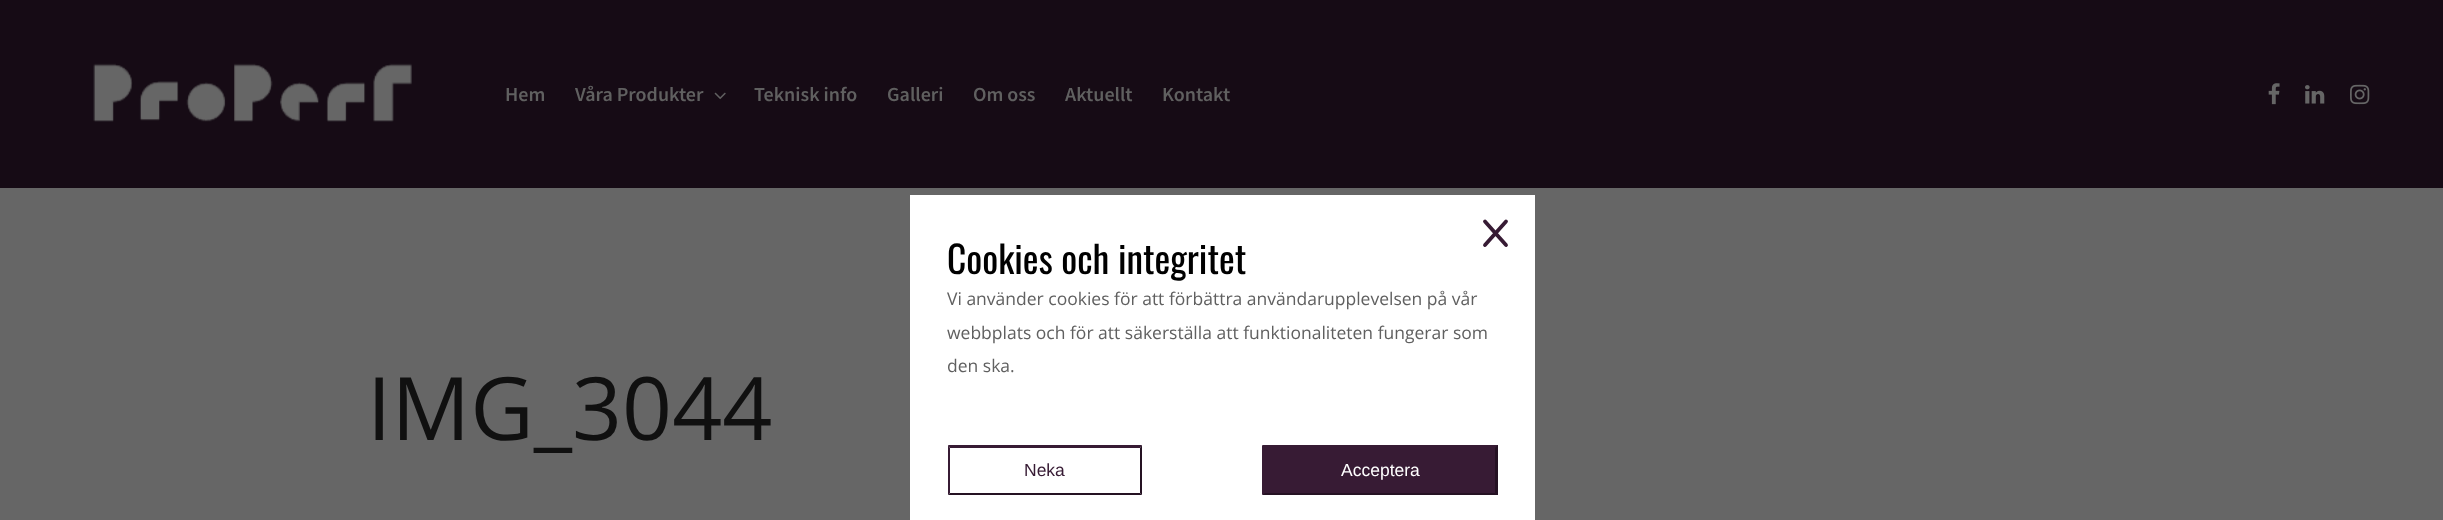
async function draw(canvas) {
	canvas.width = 2443;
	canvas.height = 520;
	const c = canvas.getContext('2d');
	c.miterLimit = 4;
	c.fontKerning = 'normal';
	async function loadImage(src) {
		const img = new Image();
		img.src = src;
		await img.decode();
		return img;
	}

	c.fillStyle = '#666';
	c.fillRect(0, 0, 2443, 520);
	c.fillStyle = '#160b15';
	c.fillRect(0, 0, 2443, 188);
	c.drawImage(await loadImage('img1.png'), 93, 63, 319, 59);
	c.drawImage(await loadImage('img2.png'), 2268, 83, 12, 22);
	c.drawImage(await loadImage('img3.png'), 2305, 85, 20, 19);
	c.drawImage(await loadImage('img4.png'), 2350, 84, 20, 21);
	c.font = '600 20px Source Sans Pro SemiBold';
	c.fillStyle = '#606060';
	c.fillText('Hem', 505, 101);
	c.fillText('Våra Produkter', 575, 101);
	c.drawImage(await loadImage('img5.png'), 714, 92, 12, 8);
	for (const [text, x, y] of [
		['Teknisk info', 754, 101],
		['Galleri', 887, 101],
		['Om oss', 973, 101],
		['Aktuellt', 1065, 101],
		['Kontakt', 1162, 101],
	]) {
		c.fillText(text, x, y);
	}
	c.font = '87.5px Open Sans';
	c.fillStyle = '#101010';
	c.fillText('IMG_3044', 367, 440);
	c.fillStyle = '#fff';
	c.fillRect(910, 195, 625, 325);
	c.beginPath();
	c.moveTo(1485, 221.5);
	c.lineTo(1506, 245);
	c.moveTo(1485, 245);
	c.lineTo(1506, 221.5);
	c.strokeStyle = '#371b34';
	c.lineWidth = 3.8;
	c.lineCap = 'round';
	c.stroke();
	c.font = '37.5px Oswald';
	c.fillStyle = '#000';
	c.fillText('Cookies och integritet', 947, 274);
	c.font = '17.5px Open Sans';
	c.fillStyle = '#606060';
	for (const [text, x, y] of [
		['Vi använder cookies för att förbättra användarupplevelsen på vår', 947, 305],
		['webbplats och för att säkerställa att funktionaliteten fungerar som', 947, 339],
		['den ska.', 947, 372],
	]) {
		c.fillText(text, x, y);
	}
	c.fillStyle = '#371b34';
	c.beginPath();
	c.moveTo(948, 445);
	c.lineTo(1142, 445);
	c.lineTo(1140, 448);
	c.lineTo(950, 448);
	c.closePath();
	c.fill();
	c.fillStyle = '#251223';
	c.beginPath();
	c.moveTo(1142, 445);
	c.lineTo(1142, 495);
	c.lineTo(1140, 493);
	c.lineTo(1140, 448);
	c.closePath();
	c.fill();
	c.beginPath();
	c.moveTo(1142, 495);
	c.lineTo(948, 495);
	c.lineTo(950, 493);
	c.lineTo(1140, 493);
	c.closePath();
	c.fill();
	c.fillStyle = '#371b34';
	c.beginPath();
	c.moveTo(948, 495);
	c.lineTo(948, 445);
	c.lineTo(950, 448);
	c.lineTo(950, 493);
	c.closePath();
	c.fill();
	c.font = '17.5px Liberation Sans';
	c.fillText('Neka', 1024, 476);
	c.fillRect(1263, 445, 235, 50);
	c.beginPath();
	c.moveTo(1262, 445);
	c.lineTo(1498, 445);
	c.lineTo(1495, 448);
	c.lineTo(1265, 448);
	c.closePath();
	c.fill();
	c.fillStyle = '#251223';
	c.beginPath();
	c.moveTo(1498, 445);
	c.lineTo(1498, 495);
	c.lineTo(1495, 493);
	c.lineTo(1495, 448);
	c.closePath();
	c.fill();
	c.beginPath();
	c.moveTo(1498, 495);
	c.lineTo(1262, 495);
	c.lineTo(1265, 493);
	c.lineTo(1495, 493);
	c.closePath();
	c.fill();
	c.fillStyle = '#371b34';
	c.beginPath();
	c.moveTo(1262, 495);
	c.lineTo(1262, 445);
	c.lineTo(1265, 448);
	c.lineTo(1265, 493);
	c.closePath();
	c.fill();
	c.fillStyle = '#fff';
	c.fillText('Acceptera', 1341, 476);
}

draw(document.querySelector('canvas'));
